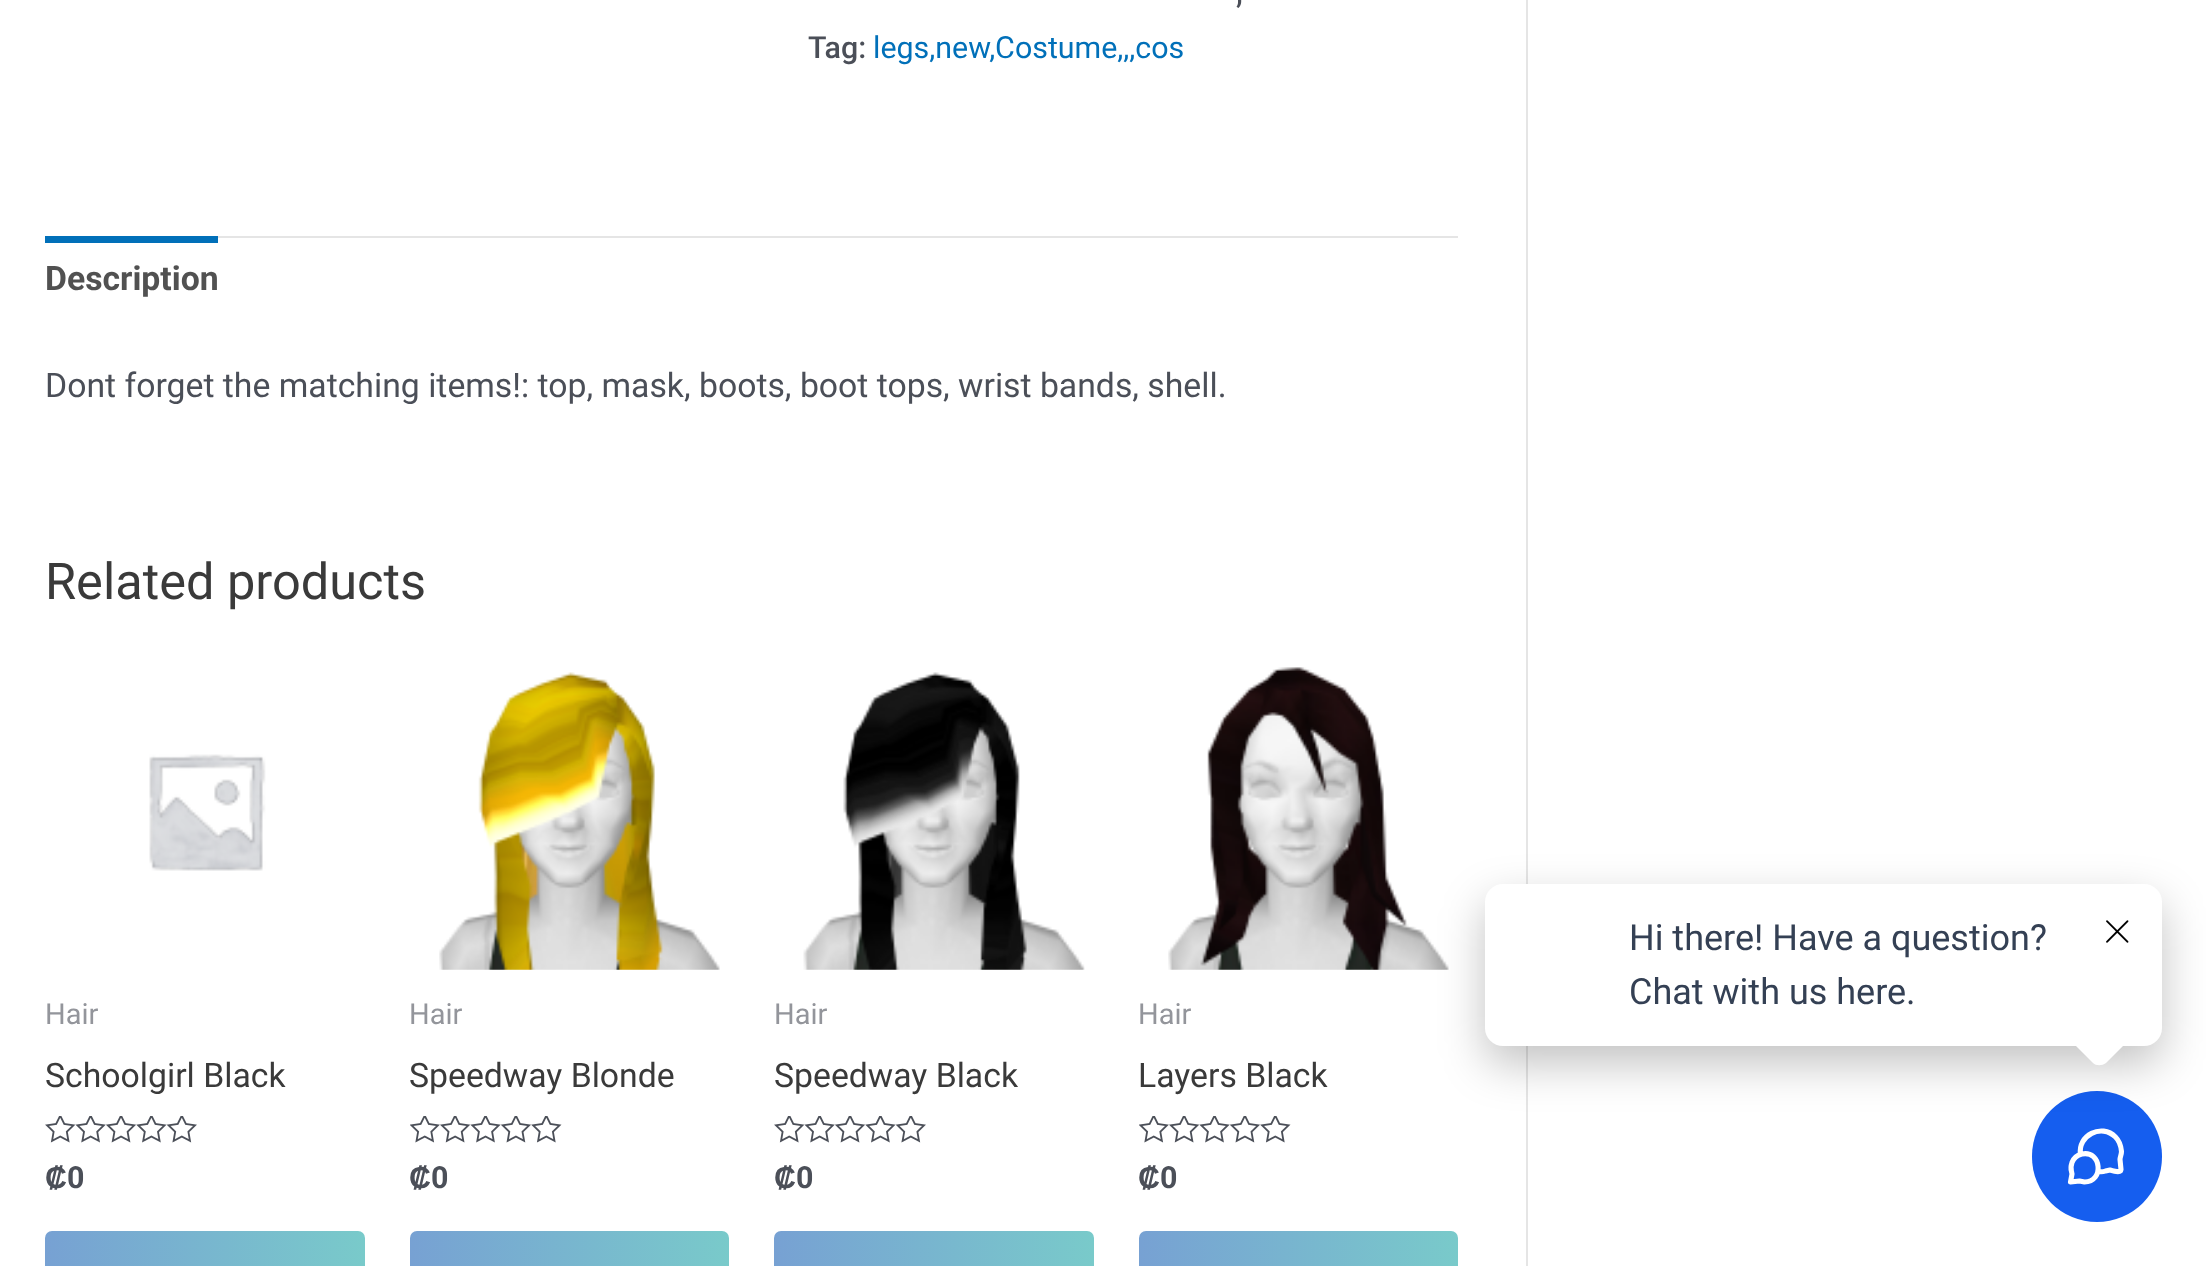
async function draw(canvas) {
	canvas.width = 2206;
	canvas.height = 1266;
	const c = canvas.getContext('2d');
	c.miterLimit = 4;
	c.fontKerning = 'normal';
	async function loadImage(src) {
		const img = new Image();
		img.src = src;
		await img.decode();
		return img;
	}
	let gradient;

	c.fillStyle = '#fff';
	c.fillRect(0, 0, 2206, 1266);
	c.fillStyle = '#e5e5e5';
	c.fillRect(1526, 0, 2, 1266);
	c.font = '500 30.4px Roboto';
	c.fillStyle = '#4b4f58';
	c.fillText(',', 1236, 3);
	c.fillText('Tag:', 808, 58);
	c.font = '30.4px Roboto';
	c.fillStyle = '#0170b9';
	c.fillText('legs,new,Costume,,,cos', 873, 58);
	c.fillStyle = '#e5e5e5';
	c.fillRect(218, 236, 1240, 2);
	c.fillStyle = '#0170b9';
	c.fillRect(45, 236, 173, 7);
	c.font = 'bold 33.75px Roboto';
	c.fillStyle = '#515151';
	c.fillText('Description', 45, 290);
	c.font = '33.75px Roboto';
	c.fillStyle = '#4b4f58';
	c.fillText('Dont forget the matching items!: top, mask, boots, boot tops, wrist bands, shell.', 45, 397);
	c.font = '50.5px Roboto';
	c.fillStyle = '#3a3a3a';
	c.fillText('Related products', 45, 599);
	c.drawImage(await loadImage('img1.png'), 149, 754, 117, 117);
	c.font = '29px Roboto';
	c.fillStyle = '#93959b';
	c.fillText('Hair', 45, 1024);
	c.font = '33.75px Roboto';
	c.fillStyle = '#3a3a3a';
	c.fillText('Schoolgirl Black', 45, 1087);
	c.drawImage(await loadImage('img2.png'), 45, 1116, 152, 27);
	c.font = 'bold 30.4px Liberation Sans';
	c.fillStyle = '#4b4f58';
	c.fillText('₡', 45, 1188);
	c.font = 'bold 30.4px Roboto';
	c.fillText('0', 67, 1188);
	gradient = c.createLinearGradient(45, 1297, 684, 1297);
	gradient.addColorStop(0, '#77a1d3');
	gradient.addColorStop(0.51, '#79cbca');
	gradient.addColorStop(1, '#77a1d3');
	c.fillStyle = gradient;
	c.beginPath();
	c.roundRect(45, 1231, 320, 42, 7);
	c.fill();
	c.drawImage(await loadImage('img3.png'), 439, 672, 281, 298);
	c.font = '29px Roboto';
	c.fillStyle = '#93959b';
	c.fillText('Hair', 409, 1024);
	c.font = '33.75px Roboto';
	c.fillStyle = '#3a3a3a';
	c.fillText('Speedway Blonde', 409, 1087);
	c.drawImage(await loadImage('img4.png'), 410, 1116, 152, 27);
	c.font = 'bold 30.4px Liberation Sans';
	c.fillStyle = '#4b4f58';
	c.fillText('₡', 409, 1188);
	c.font = 'bold 30.4px Roboto';
	c.fillText('0', 431, 1188);
	gradient = c.createLinearGradient(410, 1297, 1049, 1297);
	gradient.addColorStop(0, '#77a1d3');
	gradient.addColorStop(0.51, '#79cbca');
	gradient.addColorStop(1, '#77a1d3');
	c.fillStyle = gradient;
	c.beginPath();
	c.roundRect(410, 1231, 319, 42, 7);
	c.fill();
	c.drawImage(await loadImage('img5.png'), 803, 672, 282, 298);
	c.font = '29px Roboto';
	c.fillStyle = '#93959b';
	c.fillText('Hair', 774, 1024);
	c.font = '33.75px Roboto';
	c.fillStyle = '#3a3a3a';
	c.fillText('Speedway Black', 774, 1087);
	c.drawImage(await loadImage('img2.png'), 774, 1116, 152, 27);
	c.font = 'bold 30.4px Liberation Sans';
	c.fillStyle = '#4b4f58';
	c.fillText('₡', 774, 1188);
	c.font = 'bold 30.4px Roboto';
	c.fillText('0', 796, 1188);
	gradient = c.createLinearGradient(774, 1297, 1413, 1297);
	gradient.addColorStop(0, '#77a1d3');
	gradient.addColorStop(0.51, '#79cbca');
	gradient.addColorStop(1, '#77a1d3');
	c.fillStyle = gradient;
	c.beginPath();
	c.roundRect(774, 1231, 320, 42, 7);
	c.fill();
	c.drawImage(await loadImage('img6.png'), 1168, 667, 281, 303);
	c.font = '29px Roboto';
	c.fillStyle = '#93959b';
	c.fillText('Hair', 1138, 1024);
	c.font = '33.75px Roboto';
	c.fillStyle = '#3a3a3a';
	c.fillText('Layers Black', 1138, 1087);
	c.drawImage(await loadImage('img4.png'), 1139, 1116, 152, 27);
	c.font = 'bold 30.4px Liberation Sans';
	c.fillStyle = '#4b4f58';
	c.fillText('₡', 1138, 1188);
	c.font = 'bold 30.4px Roboto';
	c.fillText('0', 1160, 1188);
	gradient = c.createLinearGradient(1139, 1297, 1778, 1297);
	gradient.addColorStop(0, '#77a1d3');
	gradient.addColorStop(0.51, '#79cbca');
	gradient.addColorStop(1, '#77a1d3');
	c.fillStyle = gradient;
	c.beginPath();
	c.roundRect(1139, 1231, 319, 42, 7);
	c.fill();
	c.fillStyle = '#155eef';
	c.beginPath();
	c.roundRect(2032, 1091, 130, 131, 65);
	c.fill();
	c.beginPath();
	c.moveTo(2080.5, 1154.5);
	c.bezierCurveTo(2077.5, 1135.5, 2101.5, 1123, 2115.5, 1137);
	c.bezierCurveTo(2119.5, 1141, 2121, 1146, 2121.5, 1151.5);
	c.bezierCurveTo(2121.5, 1154.5, 2120, 1157, 2120, 1159.5);
	c.lineTo(2121, 1169.5);
	c.lineTo(2120.5, 1171);
	c.bezierCurveTo(2119, 1172.5, 2111.5, 1170.5, 2110, 1170);
	c.lineTo(2105.5, 1171);
	c.bezierCurveTo(2103, 1172, 2100.5, 1172, 2098, 1171.5);
	c.moveTo(2084.5, 1182);
	c.bezierCurveTo(2104.5, 1182, 2101.5, 1150, 2082, 1154);
	c.bezierCurveTo(2077.5, 1155, 2073.5, 1158.5, 2072, 1162.5);
	c.bezierCurveTo(2071, 1165.5, 2070.5, 1168.5, 2071.5, 1171.5);
	c.lineTo(2072, 1174);
	c.lineTo(2070.5, 1182);
	c.lineTo(2079.5, 1181);
	c.closePath();
	c.strokeStyle = '#fff';
	c.lineWidth = 5.1;
	c.lineCap = 'round';
	c.lineJoin = 'round';
	c.stroke();
	c.fillStyle = '#0000003d';
	c.filter = 'blur(22.5px)';
	c.beginPath();
	c.roundRect(1485, 902, 677, 162, 18);
	c.fill();
	c.filter = 'none';
	c.fillStyle = '#fff';
	c.beginPath();
	c.roundRect(1485, 884, 677, 162, 18);
	c.fill();
	c.font = '36px Roboto';
	c.fillStyle = '#344054';
	c.fillText('Hi there! Have a question?', 1629, 950);
	c.fillText('Chat with us here.', 1629, 1004);
	c.fillStyle = '#fff';
	c.beginPath();
	c.moveTo(2106, 1012);
	c.lineTo(2125, 1031);
	c.bezierCurveTo(2128, 1034, 2128, 1040, 2125, 1044);
	c.lineTo(2106, 1063);
	c.bezierCurveTo(2102, 1066, 2096, 1066, 2093, 1063);
	c.lineTo(2074, 1044);
	c.bezierCurveTo(2070, 1040, 2070, 1034, 2074, 1031);
	c.lineTo(2093, 1012);
	c.bezierCurveTo(2096, 1008, 2102, 1008, 2106, 1012);
	c.closePath();
	c.fill();
	c.drawImage(await loadImage('img7.png'), 2106, 920, 23, 23);
}

draw(document.querySelector('canvas'));
